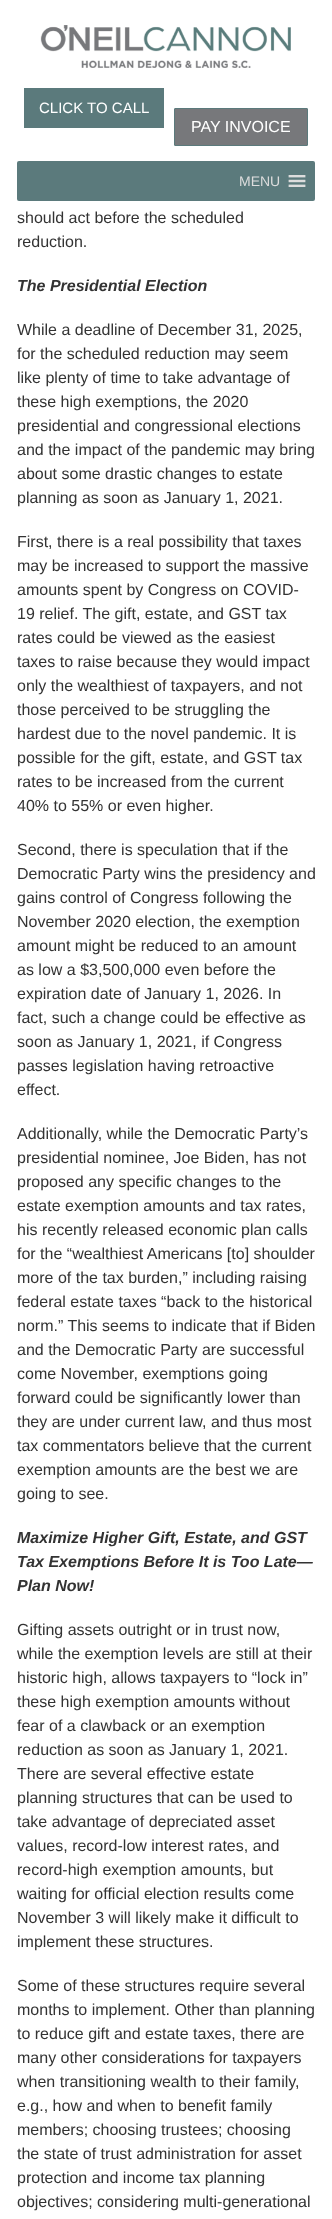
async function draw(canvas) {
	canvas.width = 332;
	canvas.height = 2219;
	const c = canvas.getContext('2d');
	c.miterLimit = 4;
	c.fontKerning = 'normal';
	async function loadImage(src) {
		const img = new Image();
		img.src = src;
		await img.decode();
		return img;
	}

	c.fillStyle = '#fff';
	c.fillRect(0, 0, 332, 2219);
	c.drawImage(await loadImage('img1.png'), 40, 25, 251, 43);
	c.fillStyle = '#5b7a7c';
	c.fillRect(24, 88, 140, 40);
	c.font = '15px Liberation Sans';
	c.fillStyle = '#fff';
	c.fillText('CLICK TO CALL', 39, 113);
	c.fillStyle = '#77787b';
	c.beginPath();
	c.roundRect(174.5, 108.5, 133, 37, 0.5);
	c.fill();
	c.strokeStyle = '#5b7a7c';
	c.stroke();
	c.font = '16px Liberation Sans';
	c.fillStyle = '#fff';
	c.fillText('PAY INVOICE', 191, 132);
	c.fillStyle = '#5b7a7c';
	c.beginPath();
	c.roundRect(17, 161, 298, 40, 2);
	c.fill();
	c.font = '14px Liberation Sans';
	c.fillStyle = '#ddd';
	c.fillText('MENU', 239, 186);
	c.drawImage(await loadImage('img2.png'), 288, 175, 18, 12);
	c.font = '16px Liberation Sans';
	c.fillStyle = '#333';
	c.fillText('should act before the scheduled', 17, 223);
	c.fillText('reduction.', 17, 247);
	c.font = 'italic bold 16px Liberation Sans';
	c.fillText('The Presidential Election', 17, 291);
	c.font = '16px Liberation Sans';
	for (const [text, x, y] of [
		['While a deadline of December 31, 2025,', 17, 335],
		['for the scheduled reduction may seem', 17, 359],
		['like plenty of time to take advantage of', 17, 383],
		['these high exemptions, the 2020', 17, 407],
		['presidential and congressional elections', 17, 431],
		['and the impact of the pandemic may bring', 17, 455],
		['about some drastic changes to estate', 17, 479],
		['planning as soon as January 1, 2021.', 17, 503],
		['First, there is a real possibility that taxes', 17, 547],
		['may be increased to support the massive', 17, 571],
		['amounts spent by Congress on COVID-', 17, 595],
		['19 relief. The gift, estate, and GST tax', 17, 619],
		['rates could be viewed as the easiest', 17, 643],
		['taxes to raise because they would impact', 17, 667],
		['only the wealthiest of taxpayers, and not', 17, 691],
		['those perceived to be struggling the', 17, 715],
		['hardest due to the novel pandemic. It is', 17, 739],
		['possible for the gift, estate, and GST tax', 17, 763],
		['rates to be increased from the current', 17, 787],
		['40% to 55% or even higher.', 17, 811],
		['Second, there is speculation that if the', 17, 855],
		['Democratic Party wins the presidency and', 17, 879],
		['gains control of Congress following the', 17, 903],
		['November 2020 election, the exemption', 17, 927],
		['amount might be reduced to an amount', 17, 951],
		['as low a $3,500,000 even before the', 17, 975],
		['expiration date of January 1, 2026. In', 17, 999],
		['fact, such a change could be effective as', 17, 1023],
		['soon as January 1, 2021, if Congress', 17, 1047],
		['passes legislation having retroactive', 17, 1071],
		['effect.', 17, 1095],
		['Additionally, while the Democratic Party’s', 17, 1139],
		['presidential nominee, Joe Biden, has not', 17, 1163],
		['proposed any specific changes to the', 17, 1187],
		['estate exemption amounts and tax rates,', 17, 1211],
		['his recently released economic plan calls', 17, 1235],
		['for the “wealthiest Americans [to] shoulder', 17, 1259],
		['more of the tax burden,” including raising', 17, 1283],
		['federal estate taxes “back to the historical', 17, 1307],
		['norm.” This seems to indicate that if Biden', 17, 1331],
		['and the Democratic Party are successful', 17, 1355],
		['come November, exemptions going', 17, 1379],
		['forward could be significantly lower than', 17, 1403],
		['they are under current law, and thus most', 17, 1427],
		['tax commentators believe that the current', 17, 1451],
		['exemption amounts are the best we are', 17, 1475],
		['going to see.', 17, 1499],
	]) {
		c.fillText(text, x, y);
	}
	c.font = 'italic bold 16px Liberation Sans';
	for (const [text, x, y] of [
		['Maximize Higher Gift, Estate, and GST', 17, 1543],
		['Tax Exemptions Before It is Too Late—', 17, 1567],
		['Plan Now!', 17, 1591],
	]) {
		c.fillText(text, x, y);
	}
	c.font = '16px Liberation Sans';
	for (const [text, x, y] of [
		['Gifting assets outright or in trust now,', 17, 1635],
		['while the exemption levels are still at their', 17, 1659],
		['historic high, allows taxpayers to “lock in”', 17, 1683],
		['these high exemption amounts without', 17, 1707],
		['fear of a clawback or an exemption', 17, 1731],
		['reduction as soon as January 1, 2021.', 17, 1755],
		['There are several effective estate', 17, 1779],
		['planning structures that can be used to', 17, 1803],
		['take advantage of depreciated asset', 17, 1827],
		['values, record-low interest rates, and', 17, 1851],
		['record-high exemption amounts, but', 17, 1875],
		['waiting for official election results come', 17, 1899],
		['November 3 will likely make it difficult to', 17, 1923],
		['implement these structures.', 17, 1947],
		['Some of these structures require several', 17, 1991],
		['months to implement. Other than planning', 17, 2015],
		['to reduce gift and estate taxes, there are', 17, 2039],
		['many other considerations for taxpayers', 17, 2063],
		['when transitioning wealth to their family,', 17, 2087],
		['e.g., how and when to benefit family', 17, 2111],
		['members; choosing trustees; choosing', 17, 2135],
		['the state of trust administration for asset', 17, 2159],
		['protection and income tax planning', 17, 2183],
		['objectives; considering multi-generational', 17, 2207],
	]) {
		c.fillText(text, x, y);
	}
}

draw(document.querySelector('canvas'));
